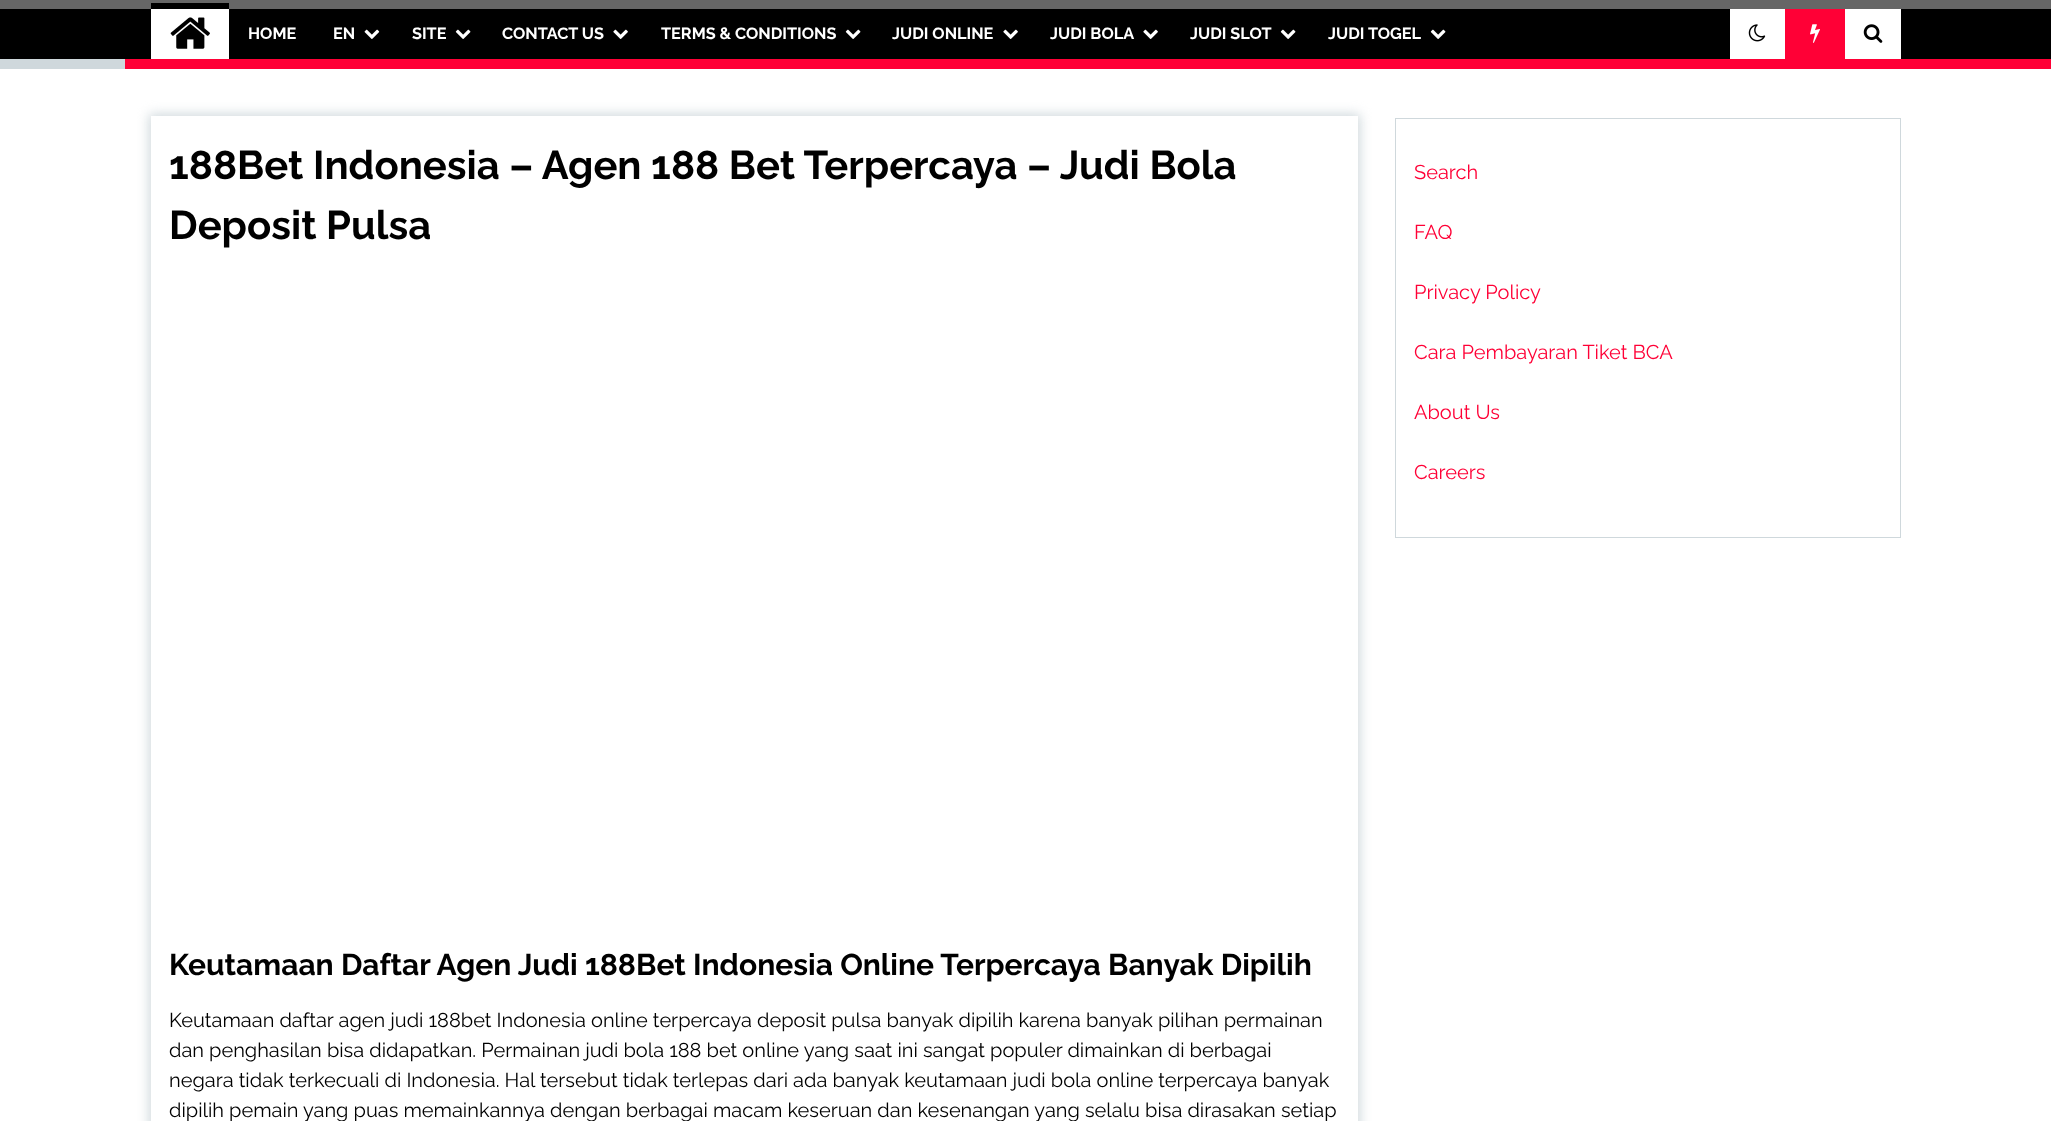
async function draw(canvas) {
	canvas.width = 2051;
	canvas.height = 1121;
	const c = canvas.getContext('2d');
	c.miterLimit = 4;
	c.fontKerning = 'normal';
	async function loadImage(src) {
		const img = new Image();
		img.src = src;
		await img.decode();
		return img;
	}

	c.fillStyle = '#fff';
	c.fillRect(0, 0, 2051, 1121);
	for (const [x, y, w, h, color] of [
		[0, 0, 2051, 9, '#666'],
		[0, 9, 2051, 50, '#000'],
		[151, 9, 78, 50, '#fff'],
		[151, 3, 78, 6, '#000'],
	]) {
		c.fillStyle = color;
		c.fillRect(x, y, w, h);
	}
	c.drawImage(await loadImage('img1.png'), 170, 17, 40, 32);
	c.font = 'bold 16.25px Raleway';
	c.fillStyle = '#fff';
	c.fillText('HOME', 248, 39);
	c.fillText('EN', 333, 39);
	c.drawImage(await loadImage('img2.png'), 364, 29, 16, 10);
	c.fillText('SITE', 412, 39);
	c.drawImage(await loadImage('img3.png'), 455, 29, 16, 10);
	c.fillText('CONTACT US', 502, 39);
	c.drawImage(await loadImage('img4.png'), 613, 29, 15, 10);
	c.fillText('TERMS & CONDITIONS', 661, 39);
	c.drawImage(await loadImage('img3.png'), 845, 29, 16, 10);
	c.fillText('JUDI ONLINE', 892, 39);
	c.drawImage(await loadImage('img4.png'), 1003, 29, 15, 10);
	c.fillText('JUDI BOLA', 1050, 39);
	c.drawImage(await loadImage('img4.png'), 1143, 29, 15, 10);
	c.fillText('JUDI SLOT', 1190, 39);
	c.drawImage(await loadImage('img3.png'), 1280, 29, 16, 10);
	c.fillText('JUDI TOGEL', 1328, 39);
	c.drawImage(await loadImage('img3.png'), 1430, 29, 16, 10);
	c.fillRect(1730, 9, 55, 50);
	c.drawImage(await loadImage('img5.png'), 1748, 24, 18, 18);
	c.fillStyle = '#ff0036';
	c.fillRect(1785, 9, 60, 50);
	c.drawImage(await loadImage('img6.png'), 1810, 24, 10, 19);
	c.fillStyle = '#fff';
	c.fillRect(1845, 9, 56, 50);
	c.drawImage(await loadImage('img7.png'), 1863, 24, 20, 19);
	c.fillStyle = '#cfd8dc';
	c.fillRect(0, 59, 125, 10);
	c.fillStyle = '#ff0036';
	c.fillRect(125, 59, 1926, 10);
	c.save();
	c.beginPath();
	c.moveTo(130, 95);
	c.lineTo(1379, 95);
	c.lineTo(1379, 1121);
	c.lineTo(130, 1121);
	c.closePath();
	c.moveTo(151, 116);
	c.lineTo(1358, 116);
	c.lineTo(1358, 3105);
	c.lineTo(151, 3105);
	c.closePath();
	c.clip('evenodd');
	c.fillStyle = '#cfd8dc';
	c.filter = 'blur(6px)';
	c.beginPath();
	c.rect(149, 114, 1211, 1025);
	c.fill();
	c.filter = 'none';
	c.restore();
	c.font = 'bold 40px Raleway';
	c.fillStyle = '#000';
	c.fillText('188Bet Indonesia – Agen 188 Bet Terpercaya – Judi Bola', 169, 179);
	c.fillText('Deposit Pulsa', 169, 239);
	c.font = 'bold 30px Raleway';
	c.fillText('Keutamaan Daftar Agen Judi 188Bet Indonesia Online Terpercaya Banyak Dipilih', 169, 975);
	c.font = '20px Raleway';
	for (const [text, x, y] of [
		['Keutamaan daftar agen judi 188bet Indonesia online terpercaya deposit pulsa banyak dipilih karena banyak pilihan permainan', 169, 1027],
		['dan penghasilan bisa didapatkan. Permainan judi bola 188 bet online yang saat ini sangat populer dimainkan di berbagai', 169, 1057],
		['negara tidak terkecuali di Indonesia. Hal tersebut tidak terlepas dari ada banyak keutamaan judi bola online terpercaya banyak', 169, 1087],
		['dipilih pemain yang puas memainkannya dengan berbagai macam keseruan dan kesenangan yang selalu bisa dirasakan setiap', 169, 1117],
	]) {
		c.fillText(text, x, y);
	}
	c.strokeStyle = '#cfd8dc';
	c.strokeRect(1395.5, 118.5, 505, 419);
	c.fillStyle = '#ff0036';
	for (const [text, x, y] of [
		['Search', 1414, 179],
		['FAQ', 1414, 239],
		['Privacy Policy', 1414, 299],
		['Cara Pembayaran Tiket BCA', 1414, 359],
		['About Us', 1414, 419],
		['Careers', 1414, 479],
	]) {
		c.fillText(text, x, y);
	}
}

draw(document.querySelector('canvas'));
